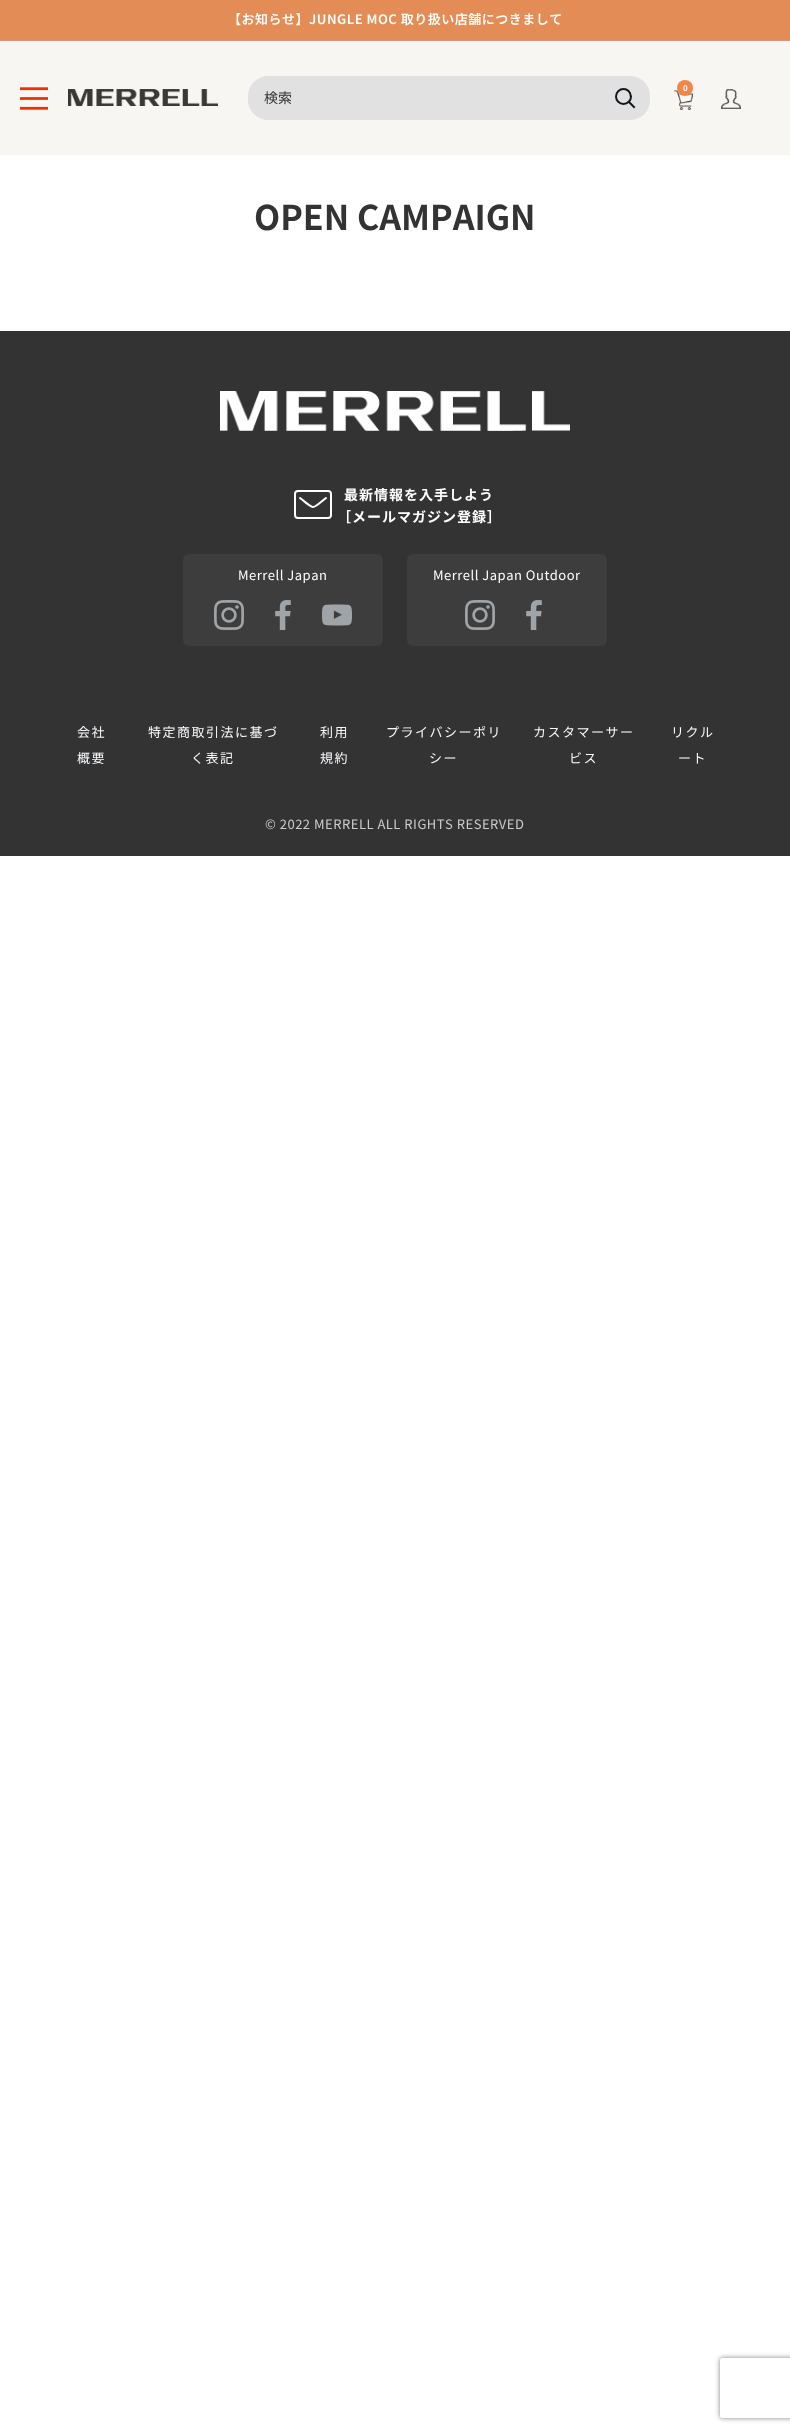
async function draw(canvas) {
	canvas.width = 790;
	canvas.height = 2432;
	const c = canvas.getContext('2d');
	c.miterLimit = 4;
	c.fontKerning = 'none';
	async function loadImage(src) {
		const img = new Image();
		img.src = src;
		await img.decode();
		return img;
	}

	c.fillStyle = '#fff';
	c.fillRect(0, 0, 790, 2432);
	c.fillStyle = '#e48c55';
	c.fillRect(0, 0, 790, 40);
	c.fillStyle = '#d19783';
	c.fillRect(0, 40, 790, 1);
	c.letterSpacing = '0.5px';
	c.font = '600 13px Noto Sans JP';
	c.fillStyle = '#fff';
	c.fillText('【お知らせ】JUNGLE MOC 取り扱い店舗につきまして', 228, 24);
	c.fillStyle = '#f8f6f2';
	c.fillRect(0, 41, 790, 114);
	c.drawImage(await loadImage('img1.png'), 20, 87, 28, 23);
	c.drawImage(await loadImage('img2.png'), 68, 89, 150, 17);
	c.fillStyle = '#e1e1e1';
	c.beginPath();
	c.roundRect(248.5, 76.5, 351, 43, [19.5, 0, 0, 19.5]);
	c.fill();
	c.strokeStyle = '#e1e1e1';
	c.stroke();
	c.letterSpacing = '0px';
	c.font = '14px Noto Sans JP';
	c.fillStyle = '#333';
	c.fillText('検索', 264, 103);
	c.fillStyle = '#e1e1e1';
	c.beginPath();
	c.roundRect(600, 76, 50, 44, [0, 20, 20, 0]);
	c.fill();
	c.beginPath();
	c.moveTo(634, 107);
	c.lineTo(629, 102);
	c.strokeStyle = '#101820';
	c.lineWidth = 2;
	c.lineCap = 'square';
	c.stroke();
	c.beginPath();
	c.arc(623.5, 96.5, 7.5, 0, 2 * Math.PI);
	c.stroke();
	c.drawImage(await loadImage('img3.png'), 674, 90, 19, 20);
	c.fillStyle = '#f28648';
	c.beginPath();
	c.arc(685, 88, 8, 0, 2 * Math.PI);
	c.fill();
	c.font = '600 8px Noto Sans JP';
	c.fillStyle = '#fff';
	c.fillText('0', 683, 91);
	c.drawImage(await loadImage('img4.png'), 721, 89, 20, 20);
	c.font = 'bold 34px Noto Sans JP';
	c.fillStyle = '#333';
	c.fillText('OPEN CAMPAIGN', 254, 230);
	c.fillRect(0, 331, 790, 525);
	c.drawImage(await loadImage('img5.png'), 220, 391, 350, 40);
	c.beginPath();
	c.roundRect(295, 491, 36, 27, 3);
	c.strokeStyle = '#fff';
	c.stroke();
	c.beginPath();
	c.moveTo(300, 498);
	c.bezierCurveTo(315.5, 510, 311, 510, 326, 498);
	c.lineCap = 'round';
	c.lineJoin = 'round';
	c.stroke();
	c.letterSpacing = '1px';
	c.font = 'bold 14px Noto Sans JP';
	c.fillStyle = '#fff';
	c.fillText('最新情報を入手しよう', 344, 500);
	c.fillText('［メールマガジン登録］', 337, 522);
	c.fillStyle = '#3d3d3d';
	c.beginPath();
	c.roundRect(183, 554, 200, 92, 6);
	c.fill();
	c.letterSpacing = '0.5px';
	c.font = '13px Noto Sans JP';
	c.fillStyle = '#fff';
	c.fillText('Merrell Japan', 238, 580);
	c.drawImage(await loadImage('img6.png'), 214, 600, 30, 30);
	c.drawImage(await loadImage('img7.png'), 275, 600, 16, 30);
	c.drawImage(await loadImage('img8.png'), 322, 604, 30, 22);
	c.fillStyle = '#3d3d3d';
	c.beginPath();
	c.roundRect(407, 554, 200, 92, 6);
	c.fill();
	c.fillStyle = '#fff';
	c.fillText('Merrell Japan Outdoor', 433, 580);
	c.drawImage(await loadImage('img6.png'), 465, 600, 30, 30);
	c.drawImage(await loadImage('img7.png'), 526, 600, 16, 30);
	c.letterSpacing = '1.5px';
	c.fillStyle = '#f5f8fc';
	for (const [text, x, y] of [
		['会社', 77, 737],
		['概要', 77, 763],
		['特定商取引法に基づ', 148, 737],
		['く表記', 191, 763],
		['利用', 320, 737],
		['規約', 320, 763],
		['プライバシーポリ', 386, 737],
		['シー', 429, 763],
		['カスタマーサー', 533, 737],
		['ビス', 569, 763],
		['リクル', 671, 737],
		['ート', 678, 763],
	]) {
		c.fillText(text, x, y);
	}
	c.letterSpacing = '0.5px';
	c.fillStyle = '#ccc';
	c.fillText('© 2022 MERRELL ALL RIGHTS RESERVED', 265, 829);
	c.save();
	c.beginPath();
	c.moveTo(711, 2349);
	c.lineTo(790, 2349);
	c.lineTo(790, 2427);
	c.lineTo(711, 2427);
	c.closePath();
	c.moveTo(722, 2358);
	c.lineTo(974, 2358);
	c.bezierCurveTo(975, 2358, 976, 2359, 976, 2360);
	c.lineTo(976, 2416);
	c.bezierCurveTo(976, 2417, 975, 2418, 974, 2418);
	c.lineTo(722, 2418);
	c.bezierCurveTo(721, 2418, 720, 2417, 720, 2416);
	c.lineTo(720, 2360);
	c.bezierCurveTo(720, 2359, 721, 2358, 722, 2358);
	c.closePath();
	c.clip('evenodd');
	c.fillStyle = '#808080';
	c.filter = 'blur(2.5px)';
	c.beginPath();
	c.roundRect(720, 2358, 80, 60, 2);
	c.fill();
	c.filter = 'none';
	c.restore();
}

draw(document.querySelector('canvas'));
